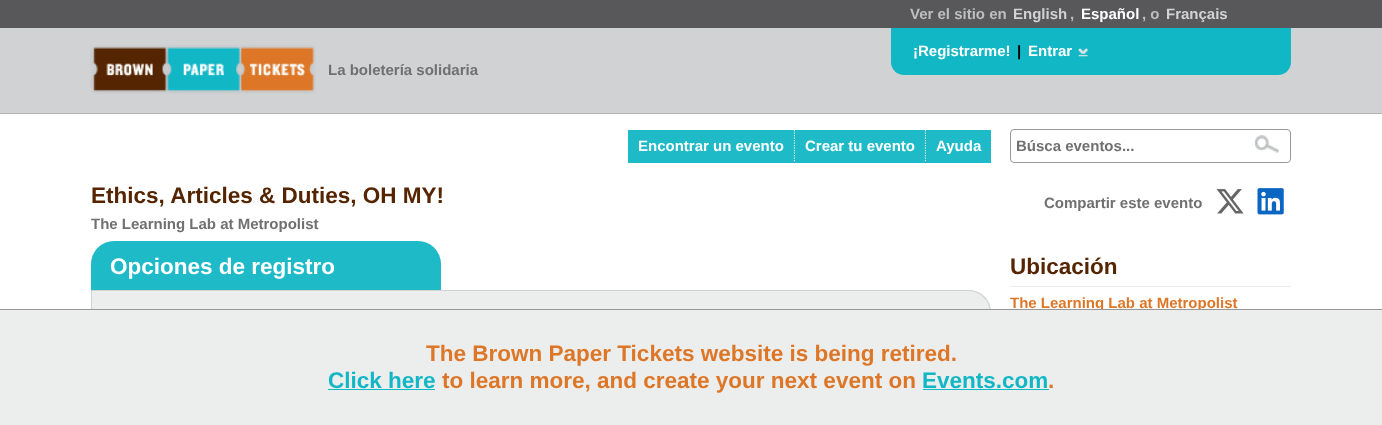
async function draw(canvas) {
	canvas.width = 1382;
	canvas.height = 425;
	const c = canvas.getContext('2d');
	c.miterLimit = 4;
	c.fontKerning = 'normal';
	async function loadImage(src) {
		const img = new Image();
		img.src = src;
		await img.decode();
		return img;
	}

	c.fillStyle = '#58585a';
	c.fillRect(0, 0, 1382, 425);
	c.font = 'bold 15px Liberation Sans';
	c.fillStyle = '#bdbec0';
	c.fillText('Ver el sitio en', 910, 19);
	c.fillStyle = '#d1d2d4';
	c.fillText('English', 1013, 19);
	c.fillStyle = '#bdbec0';
	c.fillText(',', 1070, 19);
	c.fillStyle = '#fff';
	c.fillText('Español', 1081, 19);
	c.fillStyle = '#bdbec0';
	c.fillText(', o', 1142, 19);
	c.fillStyle = '#d1d2d4';
	c.fillText('Français', 1166, 19);
	c.fillRect(0, 28, 1382, 85);
	c.fillStyle = '#b2b4b6';
	c.fillRect(0, 113, 1382, 1);
	c.drawImage(await loadImage('img1.png'), 90, 45, 226, 49);
	c.fillStyle = '#12b7c6';
	c.beginPath();
	c.roundRect(891, 28, 400, 47, [0, 0, 13, 13]);
	c.fill();
	c.fillStyle = '#fff';
	c.fillText('¡Registrarme!', 913, 56);
	c.fillStyle = '#000';
	c.fillText('|', 1017, 56);
	c.fillStyle = '#fff';
	c.fillText('Entrar', 1028, 56);
	c.drawImage(await loadImage('img2.png'), 1078, 48, 10, 9);
	c.fillStyle = '#707070';
	c.fillText('La boletería solidaria', 328, 75);
	c.fillStyle = '#fff';
	c.fillRect(0, 114, 1382, 195);
	c.fillStyle = '#1fbac8';
	c.fillRect(628, 130, 167, 33);
	c.beginPath();
	c.moveTo(794.5, 130);
	c.lineTo(794.5, 162.5);
	c.strokeStyle = '#efefef';
	c.lineWidth = 1.2;
	c.setLineDash([1.25, 1.25]);
	c.stroke();
	c.fillStyle = '#fff';
	c.fillText('Encontrar un evento', 638, 151);
	c.fillStyle = '#1fbac8';
	c.fillRect(795, 130, 131, 33);
	c.beginPath();
	c.moveTo(925.5, 130);
	c.lineTo(925.5, 162.5);
	c.stroke();
	c.fillStyle = '#fff';
	c.fillText('Crear tu evento', 805, 151);
	c.fillStyle = '#1fbac8';
	c.fillRect(926, 130, 65, 33);
	c.fillStyle = '#fff';
	c.fillText('Ayuda', 936, 151);
	c.beginPath();
	c.roundRect(1010.5, 129.5, 280, 33, 3.5);
	c.strokeStyle = '#999';
	c.lineWidth = 1;
	c.setLineDash([]);
	c.stroke();
	c.fillStyle = '#707070';
	c.fillText('Búsca eventos...', 1016, 151);
	c.drawImage(await loadImage('img3.png'), 1254, 135, 25, 18);
	c.font = 'bold 22.5px Liberation Sans';
	c.fillStyle = '#552502';
	c.fillText('Ethics, Articles & Duties, OH MY!', 91, 203);
	c.font = 'bold 15px Liberation Sans';
	c.fillStyle = '#707070';
	c.fillText('The Learning Lab at Metropolist', 91, 229);
	c.fillText('Compartir este evento', 1044, 208);
	c.drawImage(await loadImage('img4.png'), 1216, 189, 28, 25);
	c.drawImage(await loadImage('img5.png'), 1257, 188, 27, 27);
	c.fillStyle = '#1fbac8';
	c.beginPath();
	c.roundRect(91, 241, 350, 49, [23, 23, 0, 0]);
	c.fill();
	c.font = 'bold 22.5px Liberation Sans';
	c.fillStyle = '#fff';
	c.fillText('Opciones de registro', 110, 274);
	c.fillStyle = '#eceded';
	c.beginPath();
	c.roundRect(91, 290, 900, 44, [0, 23, 0, 0]);
	c.fill();
	c.fillStyle = '#d1d2d4';
	c.beginPath();
	c.moveTo(91, 290);
	c.lineTo(969, 290);
	c.bezierCurveTo(981, 290, 991, 300, 991, 312);
	c.lineTo(991, 334);
	c.lineTo(91, 334);
	c.closePath();
	c.moveTo(92, 291);
	c.lineTo(969, 291);
	c.bezierCurveTo(980, 291, 990, 301, 990, 312);
	c.lineTo(990, 334);
	c.lineTo(92, 334);
	c.closePath();
	c.fill('evenodd');
	c.fillStyle = '#eceded';
	c.fillRect(1010, 286, 281, 1);
	c.fillStyle = '#552502';
	c.fillText('Ubicación', 1010, 274);
	c.font = 'bold 15px Liberation Sans';
	c.fillStyle = '#dd7727';
	c.fillText('The Learning Lab at Metropolist', 1010, 308);
	c.fillStyle = '#eceded';
	c.fillRect(0, 310, 1382, 115);
	c.fillStyle = '#969699';
	c.fillRect(0, 309, 1382, 1);
	c.font = 'bold 22.5px Liberation Sans';
	c.fillStyle = '#dd7727';
	c.fillText('The Brown Paper Tickets website is being retired.', 426, 361);
	c.fillStyle = '#12b7c6';
	c.fillText('Click here', 328, 388);
	c.fillRect(328, 389, 107, 1);
	c.fillStyle = '#dd7727';
	c.fillText('to learn more, and create your next event on', 442, 388);
	c.fillStyle = '#12b7c6';
	c.fillText('Events.com', 922, 388);
	c.fillStyle = '#dd7727';
	c.fillText('.', 1048, 388);
	c.fillStyle = '#12b7c6';
	c.fillRect(923, 389, 126, 1);
}

draw(document.querySelector('canvas'));
